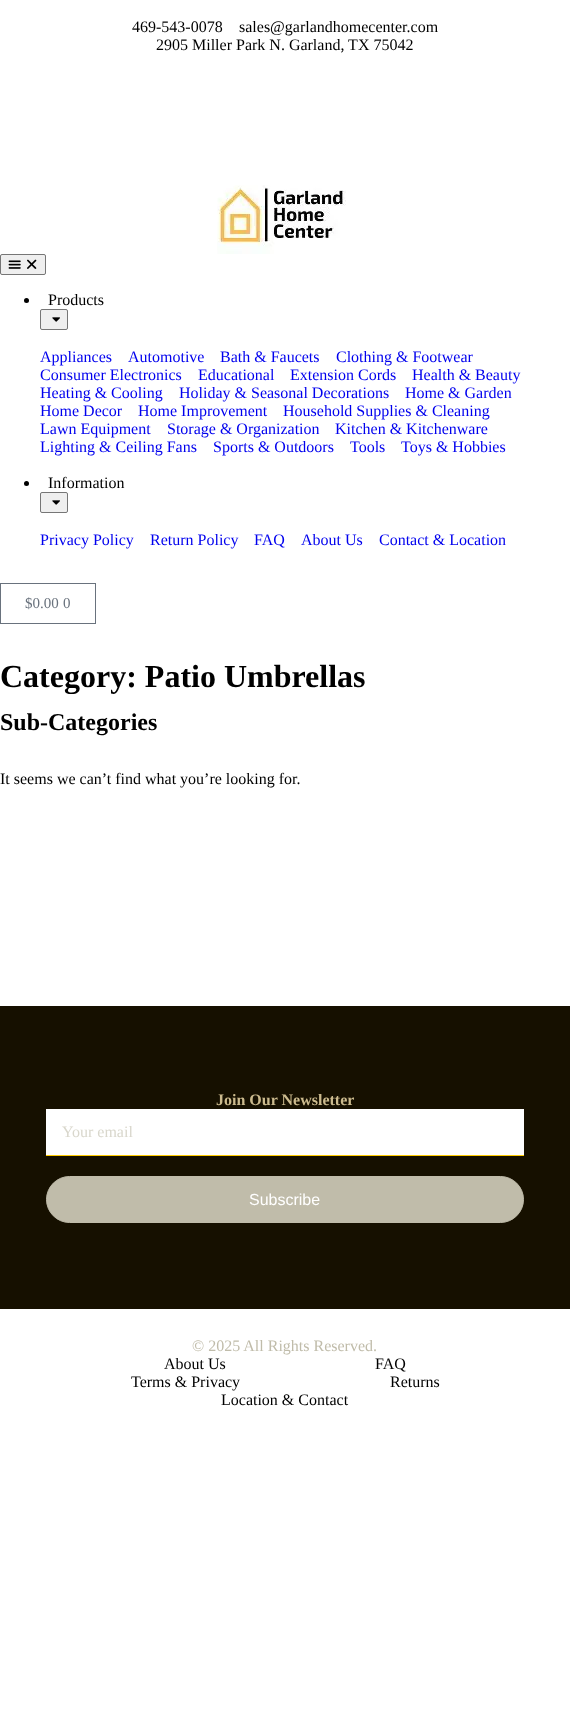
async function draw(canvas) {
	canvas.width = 570;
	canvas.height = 1728;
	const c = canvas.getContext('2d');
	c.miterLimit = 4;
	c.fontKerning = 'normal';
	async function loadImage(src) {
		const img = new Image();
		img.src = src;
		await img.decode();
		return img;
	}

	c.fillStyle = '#fff';
	c.fillRect(0, 0, 570, 1728);
	c.font = '16px Liberation Serif';
	c.fillStyle = '#000';
	for (const [text, x, y] of [
		['469-543-0078', 132, 32],
		['sales@garlandhomecenter.com', 239, 32],
		['2905 Miller Park N. Garland, TX 75042', 156, 50],
	]) {
		c.fillText(text, x, y);
	}
	c.drawImage(await loadImage('img1.png'), 217, 185, 129, 69);
	c.fillStyle = '#efefef';
	c.beginPath();
	c.roundRect(0.5, 254.5, 45, 20, 1.5);
	c.fill();
	c.strokeStyle = '#767676';
	c.stroke();
	c.drawImage(await loadImage('img2.png'), 8, 260, 13, 9);
	c.drawImage(await loadImage('img3.png'), 27, 259, 10, 10);
	c.fillStyle = '#000';
	c.beginPath();
	c.arc(26.5, 300.5, 2.5, 0, 2 * Math.PI);
	c.fill();
	c.fillText('Products', 48, 305);
	c.fillStyle = '#efefef';
	c.beginPath();
	c.roundRect(40.5, 309.5, 27, 20, 1.5);
	c.fill();
	c.stroke();
	c.drawImage(await loadImage('img4.png'), 52, 317, 8, 5);
	c.fillStyle = '#00e';
	for (const [text, x, y] of [
		['Appliances', 40, 362],
		['Automotive', 128, 362],
		['Bath & Faucets', 220, 362],
		['Clothing & Footwear', 336, 362],
		['Consumer Electronics', 40, 380],
		['Educational', 198, 380],
		['Extension Cords', 290, 380],
		['Health & Beauty', 412, 380],
		['Heating & Cooling', 40, 398],
		['Holiday & Seasonal Decorations', 179, 398],
		['Home & Garden', 405, 398],
		['Home Decor', 40, 416],
		['Home Improvement', 138, 416],
		['Household Supplies & Cleaning', 283, 416],
		['Lawn Equipment', 40, 434],
		['Storage & Organization', 167, 434],
		['Kitchen & Kitchenware', 335, 434],
		['Lighting & Ceiling Fans', 40, 452],
		['Sports & Outdoors', 213, 452],
		['Tools', 350, 452],
		['Toys & Hobbies', 401, 452],
	]) {
		c.fillText(text, x, y);
	}
	c.fillStyle = '#000';
	c.beginPath();
	c.arc(26.5, 483.5, 2.5, 0, 2 * Math.PI);
	c.fill();
	c.fillText('Information', 48, 488);
	c.fillStyle = '#efefef';
	c.beginPath();
	c.roundRect(40.5, 492.5, 27, 20, 1.5);
	c.fill();
	c.stroke();
	c.drawImage(await loadImage('img4.png'), 52, 500, 8, 5);
	c.fillStyle = '#00e';
	for (const [text, x, y] of [
		['Privacy Policy', 40, 545],
		['Return Policy', 150, 545],
		['FAQ', 254, 545],
		['About Us', 301, 545],
		['Contact & Location', 379, 545],
	]) {
		c.fillText(text, x, y);
	}
	c.strokeStyle = '#69727d';
	c.strokeRect(0.5, 583.5, 95, 40);
	c.font = '15px Liberation Serif';
	c.fillStyle = '#69727d';
	c.fillText('$0.00', 25, 608);
	c.fillText('0', 63, 608);
	c.font = 'bold 32px Liberation Serif';
	c.fillStyle = '#000';
	c.fillText('Category: Patio Umbrellas', 0, 687);
	c.font = 'bold 24px Liberation Serif';
	c.fillText('Sub-Categories', 0, 730);
	c.font = '16px Liberation Serif';
	c.fillText('It seems we can’t find what you’re looking for.', 0, 784);
	c.fillStyle = '#161000';
	c.fillRect(0, 1006, 570, 303);
	c.font = 'bold 16px Liberation Serif';
	c.fillStyle = '#ccbb8e';
	c.fillText('Join Our Newsletter', 216, 1105);
	c.fillStyle = '#fff';
	c.fillRect(46, 1109, 478, 46);
	c.fillStyle = '#ffcb00';
	c.fillRect(46, 1155, 478, 1);
	c.font = '16px Liberation Serif';
	c.fillStyle = '#d9d7cc';
	c.fillText('Your email', 62, 1137);
	c.fillStyle = '#c0bcaa';
	c.beginPath();
	c.roundRect(46.5, 1176.5, 477, 46, 23);
	c.fill();
	c.strokeStyle = '#c0bcaa';
	c.stroke();
	c.font = '16px Liberation Sans';
	c.fillStyle = '#fff';
	c.fillText('Subscribe', 249, 1205);
	c.font = '16px Liberation Serif';
	c.fillStyle = '#c0bcaa';
	c.fillText('© 2025 All Rights Reserved.', 192, 1351);
	c.fillStyle = '#000';
	for (const [text, x, y] of [
		['About Us', 164, 1369],
		['FAQ', 375, 1369],
		['Terms & Privacy', 131, 1387],
		['Returns', 390, 1387],
		['Location & Contact', 221, 1405],
	]) {
		c.fillText(text, x, y);
	}
}

draw(document.querySelector('canvas'));
